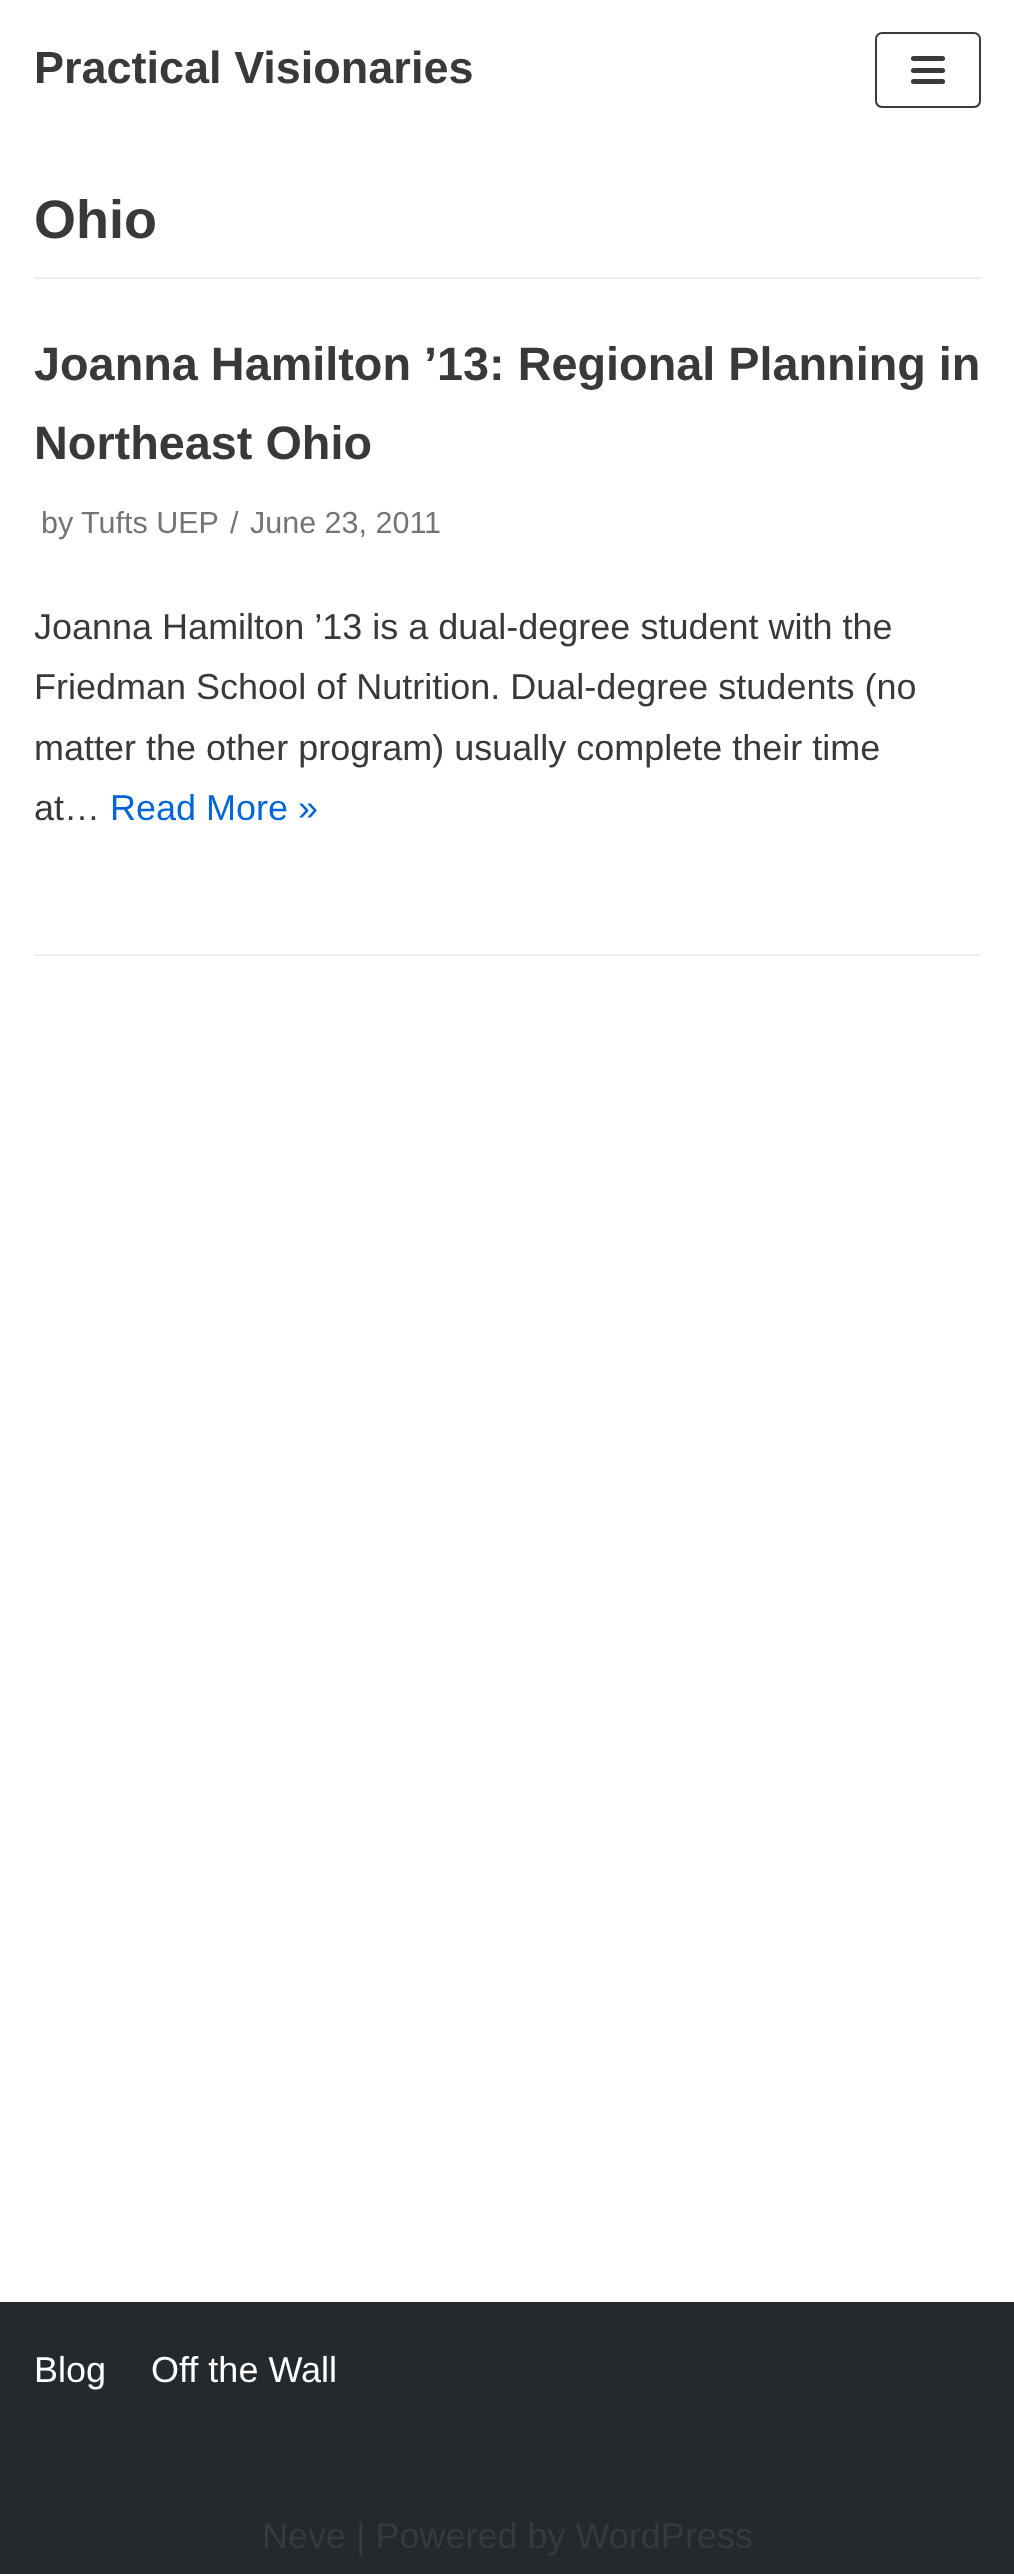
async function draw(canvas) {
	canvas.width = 1014;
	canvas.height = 2574;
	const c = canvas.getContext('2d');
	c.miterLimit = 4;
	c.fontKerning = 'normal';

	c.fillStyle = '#fff';
	c.fillRect(0, 0, 1014, 2574);
	c.font = 'bold 45px Liberation Sans';
	c.fillStyle = '#393939';
	c.fillText('Practical Visionaries', 34, 83);
	c.beginPath();
	c.roundRect(876, 33, 104, 74, 6);
	c.strokeStyle = '#393939';
	c.lineWidth = 2;
	c.stroke();
	c.beginPath();
	c.roundRect(911, 56, 34, 5, 2.5);
	c.fill();
	c.beginPath();
	c.roundRect(911, 68, 34, 5, 2.5);
	c.fill();
	c.beginPath();
	c.roundRect(911, 79, 34, 5, 2.5);
	c.fill();
	c.fillStyle = '#ededed';
	c.fillRect(34, 277, 947, 2);
	c.font = 'bold 54px Liberation Sans';
	c.fillStyle = '#393939';
	c.fillText('Ohio', 34, 238);
	c.fillStyle = '#ededed';
	c.fillRect(34, 954, 947, 2);
	c.font = 'bold 46.8px Liberation Sans';
	c.fillStyle = '#393939';
	c.fillText('Joanna Hamilton ’13: Regional Planning in', 34, 380);
	c.fillText('Northeast Ohio', 34, 459);
	c.font = '30.5px Liberation Sans';
	c.fillStyle = '#747474';
	for (const [text, x, y] of [
		['by', 41, 533],
		['Tufts UEP', 81, 533],
		['/', 230, 533],
		['June 23, 2011', 250, 533],
	]) {
		c.fillText(text, x, y);
	}
	c.font = '36px Liberation Sans';
	c.fillStyle = '#393939';
	for (const [text, x, y] of [
		['Joanna Hamilton ’13 is a dual-degree student with the', 34, 639],
		['Friedman School of Nutrition. Dual-degree students (no', 34, 699],
		['matter the other program) usually complete their time', 34, 760],
		['at…', 34, 820],
	]) {
		c.fillText(text, x, y);
	}
	c.fillStyle = '#0366d6';
	c.fillText('Read More »', 110, 820);
	c.fillStyle = '#24292e';
	c.fillRect(0, 2302, 1014, 272);
	c.fillStyle = '#fff';
	c.fillText('Blog', 34, 2382);
	c.fillText('Off the Wall', 151, 2382);
	c.fillStyle = '#393939';
	c.fillText('Neve | Powered by WordPress', 262, 2548);
}

draw(document.querySelector('canvas'));
